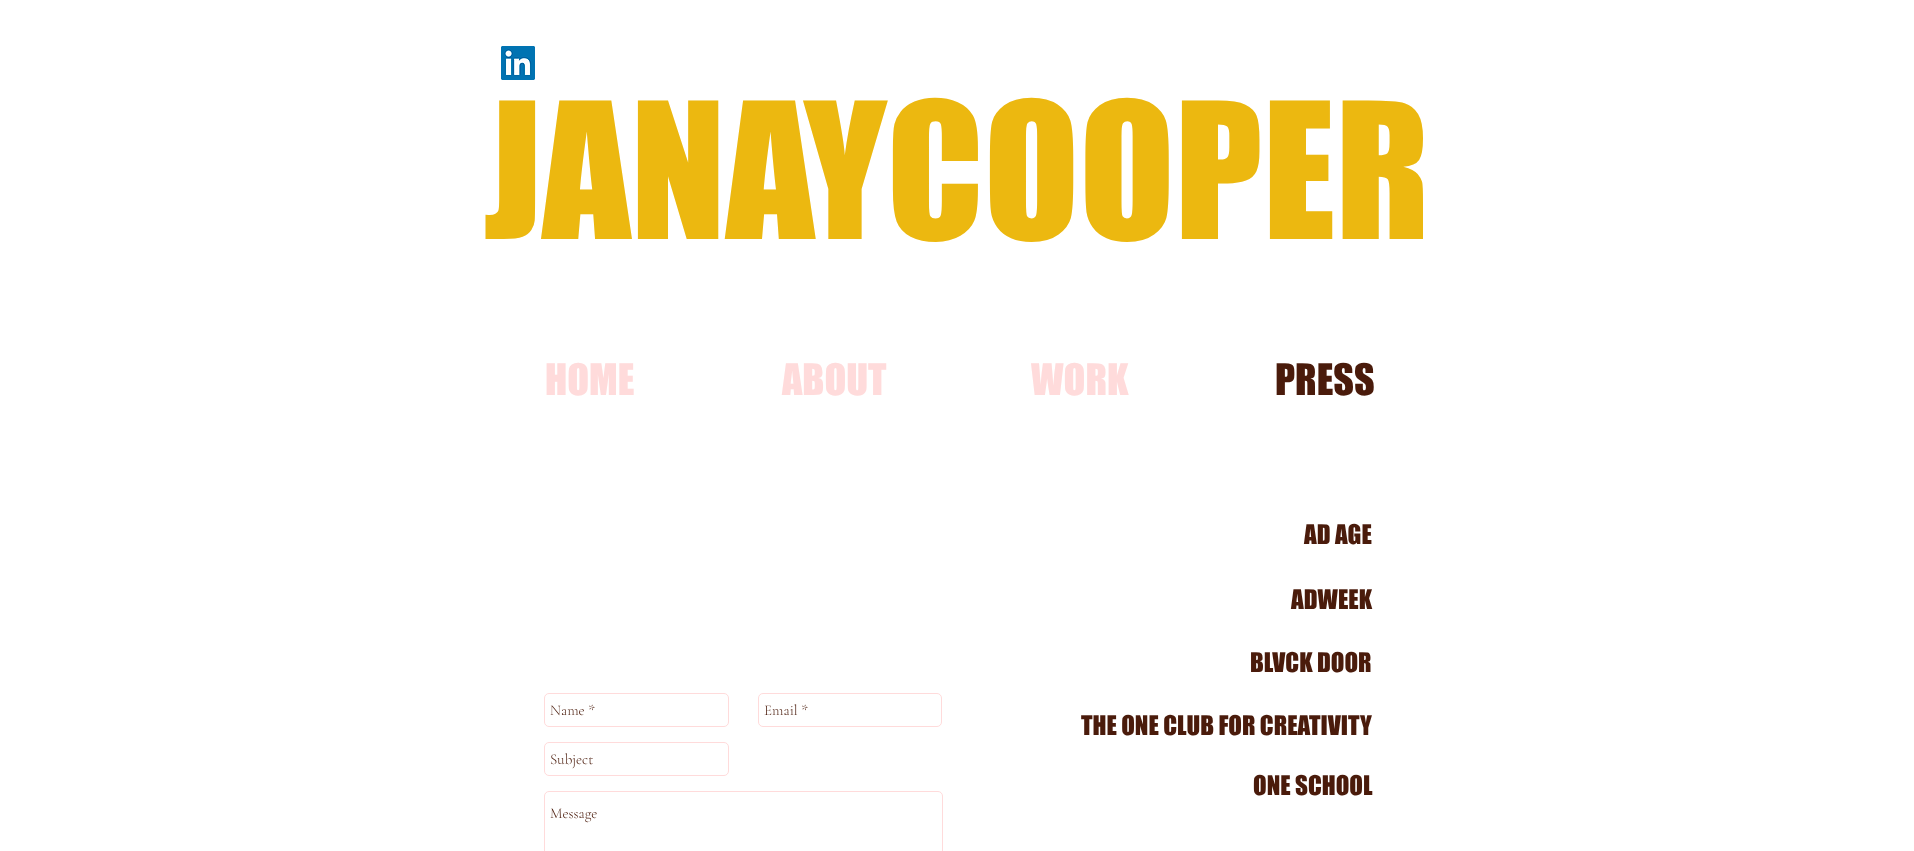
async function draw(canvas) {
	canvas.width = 1914;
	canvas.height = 851;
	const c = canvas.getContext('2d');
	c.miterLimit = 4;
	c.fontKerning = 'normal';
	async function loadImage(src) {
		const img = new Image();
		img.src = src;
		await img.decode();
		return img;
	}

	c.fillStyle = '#fff';
	c.fillRect(0, 0, 1914, 851);
	c.drawImage(await loadImage('img1.png'), 501, 46, 34, 34);
	c.font = '175px "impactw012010"';
	c.fillStyle = '#ecb810';
	c.fillText('JANAYCOOPER', 484, 239);
	c.font = '40px "impactw012010"';
	c.fillStyle = '#ffdbdb';
	for (const [text, x, y] of [
		['HOME', 545, 395],
		['ABOUT', 782, 395],
		['WORK', 1031, 395],
	]) {
		c.fillText(text, x, y);
	}
	c.fillStyle = '#4a1b0b';
	c.fillText('PRESS', 1275, 395);
	c.font = '25px "impactw012010"';
	for (const [text, x, y] of [
		['AD AGE', 1304, 544],
		['ADWEEK', 1291, 609],
		['BLVCK DOOR', 1250, 672],
	]) {
		c.fillText(text, x, y);
	}
	c.beginPath();
	c.roundRect(544.5, 693.5, 184, 33, 4.5);
	c.strokeStyle = '#ffdbdb';
	c.stroke();
	c.font = '300 15px Cormorant Garamond';
	c.fillText('Name *', 550, 715);
	c.beginPath();
	c.roundRect(758.5, 693.5, 183, 33, 4.5);
	c.stroke();
	c.fillText('Email *', 764, 715);
	c.beginPath();
	c.roundRect(544.5, 742.5, 184, 33, 4.5);
	c.stroke();
	c.fillText('Subject', 550, 764);
	c.beginPath();
	c.roundRect(544.5, 791.5, 398, 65, 4.5);
	c.stroke();
	c.fillText('Message', 550, 818);
	c.font = '25px "impactw012010"';
	c.fillText('THE ONE CLUB FOR CREATIVITY', 1081, 735);
	c.fillText('ONE SCHOOL', 1253, 795);
}

draw(document.querySelector('canvas'));
